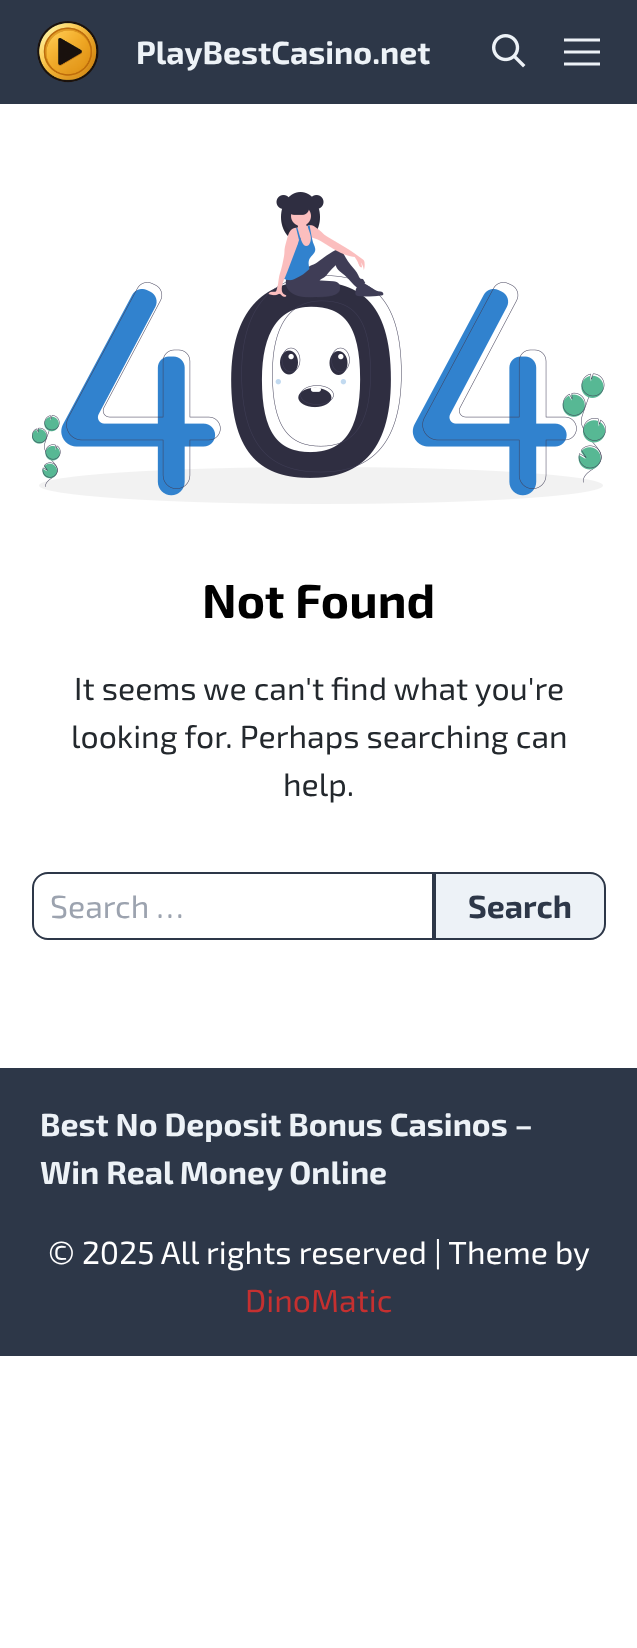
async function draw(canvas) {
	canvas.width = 637;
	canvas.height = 1648;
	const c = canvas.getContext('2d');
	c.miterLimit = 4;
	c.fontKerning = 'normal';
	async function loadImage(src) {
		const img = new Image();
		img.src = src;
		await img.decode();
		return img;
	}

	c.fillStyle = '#fff';
	c.fillRect(0, 0, 637, 1648);
	c.fillStyle = '#2d3748';
	c.fillRect(0, 0, 637, 104);
	c.drawImage(await loadImage('img1.png'), 37, 21, 62, 62);
	c.font = 'bold 32px "Exo 2"';
	c.fillStyle = '#edf2f7';
	c.fillText('PlayBestCasino.net', 136, 64);
	c.drawImage(await loadImage('img2.png'), 492, 34, 34, 34);
	c.beginPath();
	c.moveTo(564, 40);
	c.lineTo(600, 40);
	c.moveTo(564, 52);
	c.lineTo(600, 52);
	c.moveTo(564, 64);
	c.lineTo(600, 64);
	c.strokeStyle = '#edf2f7';
	c.lineWidth = 3;
	c.stroke();
	c.drawImage(await loadImage('img3.png'), 32, 192, 574, 312);
	c.font = 'bold 48px "Exo 2"';
	c.fillStyle = '#000';
	c.fillText('Not Found', 202, 618);
	c.font = '32px "Exo 2"';
	c.fillStyle = '#23282d';
	for (const [text, x, y] of [
		['It seems we can\'t find what you\'re', 74, 700],
		['looking for. Perhaps searching can', 71, 748],
		['help.', 283, 796],
	]) {
		c.fillText(text, x, y);
	}
	c.beginPath();
	c.roundRect(33, 873, 400, 66, [15, 0, 0, 15]);
	c.strokeStyle = '#2d3748';
	c.lineWidth = 2;
	c.stroke();
	c.fillStyle = '#9ca3af';
	c.fillText('Search …', 50, 918);
	c.fillStyle = '#edf2f7';
	c.beginPath();
	c.roundRect(435, 873, 170, 66, [0, 15, 15, 0]);
	c.fill();
	c.stroke();
	c.font = 'bold 32px "Exo 2"';
	c.fillStyle = '#2d3748';
	c.fillText('Search', 468, 918);
	c.fillRect(0, 1068, 637, 288);
	c.fillStyle = '#edf2f7';
	c.fillText('Best No Deposit Bonus Casinos –', 40, 1136);
	c.fillText('Win Real Money Online', 40, 1184);
	c.font = '32px "Exo 2"';
	c.fillStyle = '#fff';
	c.fillText('© 2025 All rights reserved | Theme by', 48, 1264);
	c.fillStyle = '#c53030';
	c.fillText('DinoMatic', 245, 1312);
}

draw(document.querySelector('canvas'));
